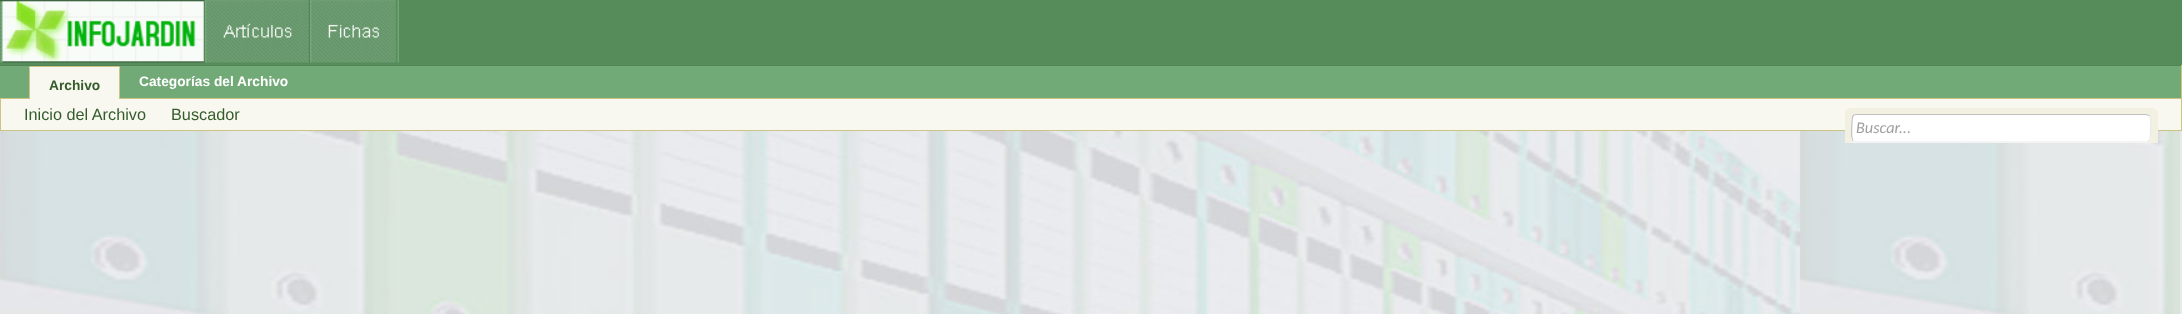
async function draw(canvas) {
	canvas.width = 2182;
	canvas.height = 314;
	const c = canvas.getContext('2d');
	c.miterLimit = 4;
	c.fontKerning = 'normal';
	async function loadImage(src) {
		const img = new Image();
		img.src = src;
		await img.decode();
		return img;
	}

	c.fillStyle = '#e9eaed';
	c.fillRect(0, 0, 2182, 314);
	c.fillStyle = '#558c5a';
	c.fillRect(0, 0, 2182, 65);
	c.drawImage(await loadImage('img1.png'), 0, 0, 399, 63);
	for (const [x, y, w, h, color] of [
		[0, 66, 2181, 32, '#71a977'],
		[0, 65, 2182, 1, '#518456'],
		[2181, 65, 1, 66, '#cbc483'],
		[0, 98, 2182, 1, '#cbc483'],
	]) {
		c.fillStyle = color;
		c.fillRect(x, y, w, h);
	}
	c.font = 'bold 13.75px Liberation Sans';
	c.fillStyle = '#fff';
	c.fillText('Categorías del Archivo', 139, 86);
	c.fillStyle = '#f8f8f1';
	c.beginPath();
	c.roundRect(29, 66, 91, 35, [2.5, 2.5, 0, 0]);
	c.fill();
	for (const [x, y, w, h, color] of [
		[30, 66, 89, 1, '#cbc483'],
		[119, 68, 1, 33, '#cbc483'],
		[29, 68, 1, 33, '#cbc483'],
	]) {
		c.fillStyle = color;
		c.fillRect(x, y, w, h);
	}
	c.fillStyle = '#345c2b';
	c.fillText('Archivo', 49, 90);
	for (const [x, y, w, h, color] of [
		[1, 99, 2180, 31, '#f8f8f1'],
		[0, 130, 2182, 1, '#cbc483'],
		[0, 99, 1, 32, '#cbc483'],
	]) {
		c.fillStyle = color;
		c.fillRect(x, y, w, h);
	}
	c.font = '16.25px Liberation Sans';
	c.fillStyle = '#345c2b';
	c.fillText('Inicio del Archivo', 24, 120);
	c.fillText('Buscador', 171, 120);
	c.drawImage(await loadImage('img2.png'), 0, 131, 2180, 183);
	c.fillStyle = '#f2f0e1';
	c.beginPath();
	c.roundRect(1845, 108, 313, 35, 6);
	c.fill();
	c.fillRect(1845, 138, 313, 5);
	c.fillStyle = '#fff';
	c.beginPath();
	c.roundRect(1851, 114, 300, 29, 5);
	c.fill();
	c.beginPath();
	c.moveTo(2149.5, 115.5);
	c.bezierCurveTo(2152, 118.5, 2150.5, 130.5, 2150.5, 134.5);
	c.bezierCurveTo(2150.5, 137.5, 2150.5, 142, 2146, 142);
	c.lineTo(1856, 142);
	c.lineTo(1853, 140.5);
	c.strokeStyle = '#e9e9e9';
	c.lineWidth = 1.2;
	c.stroke();
	c.beginPath();
	c.moveTo(1853, 140.5);
	c.bezierCurveTo(1850.5, 138, 1852, 125.5, 1852, 122);
	c.bezierCurveTo(1852, 118.5, 1852, 114.5, 1856, 114.5);
	c.lineTo(2146, 114.5);
	c.lineTo(2149.5, 115.5);
	c.strokeStyle = '#c0c0c0';
	c.stroke();
	c.font = 'italic 16.25px Carlito';
	c.fillStyle = '#a0a0a0';
	c.fillText('Buscar...', 1856, 133);
}

draw(document.querySelector('canvas'));
